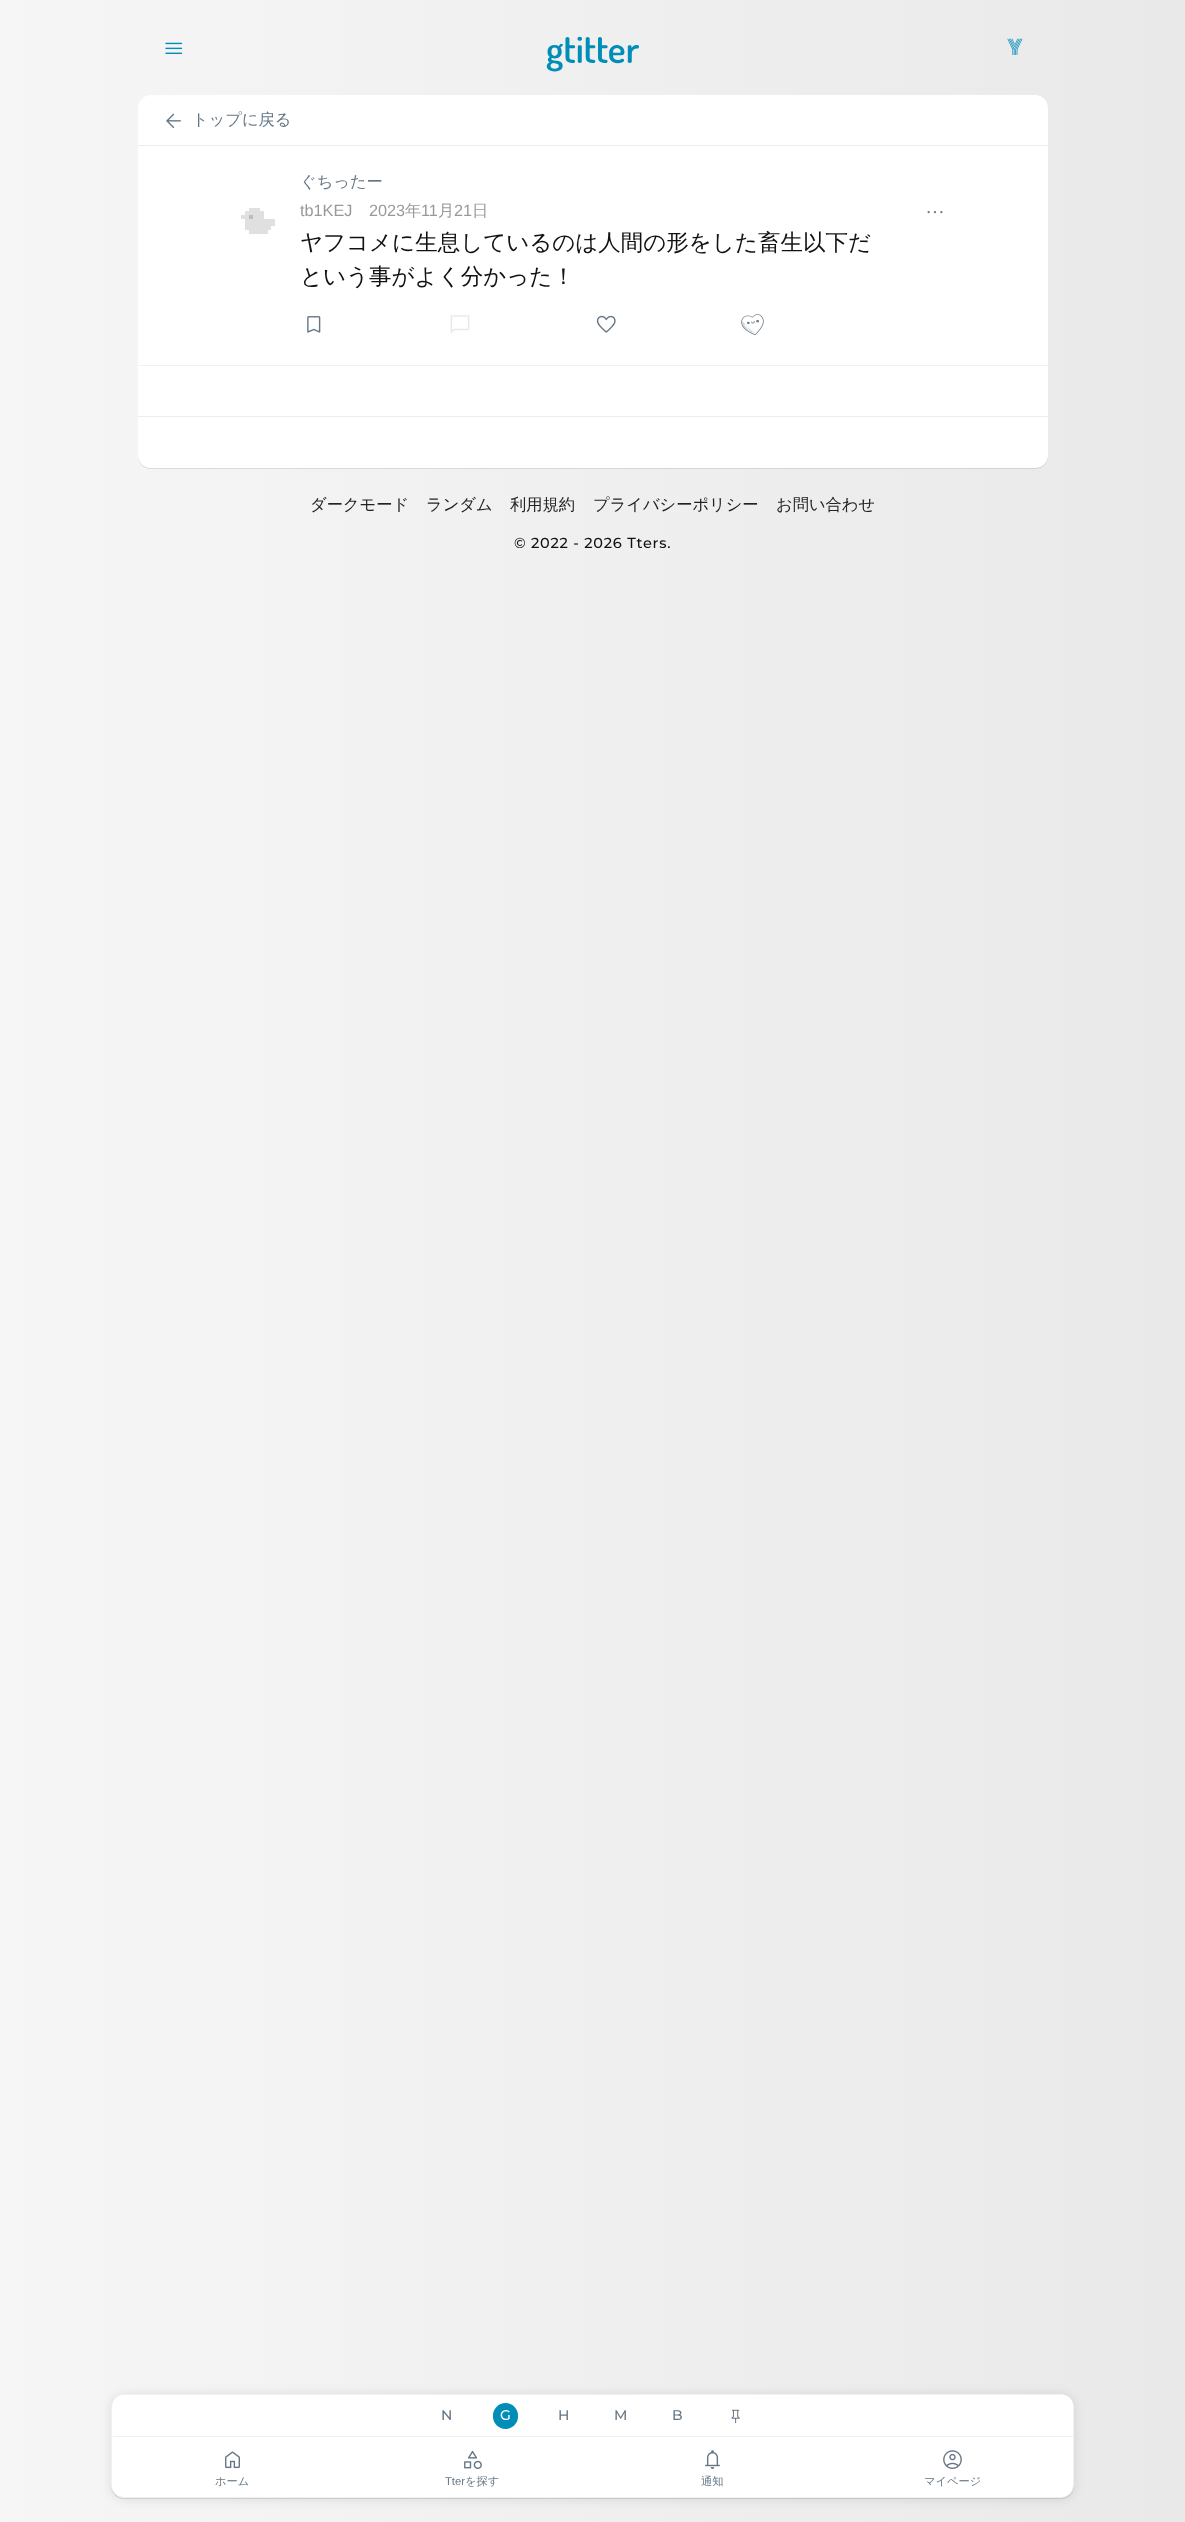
async function draw(canvas) {
	canvas.width = 1185;
	canvas.height = 2522;
	const c = canvas.getContext('2d');
	c.miterLimit = 4;
	c.fontKerning = 'normal';
	async function loadImage(src) {
		const img = new Image();
		img.src = src;
		await img.decode();
		return img;
	}
	let gradient;

	c.fillStyle = '#fff';
	c.fillRect(0, 0, 1185, 2522);
	gradient = c.createLinearGradient(0, 389, 1185, 389);
	gradient.addColorStop(0, '#f6f6f6');
	gradient.addColorStop(1, '#e9e9e9');
	c.fillStyle = gradient;
	c.fillRect(0, 0, 1185, 2522);
	c.drawImage(await loadImage('img1.png'), 165, 42, 18, 12);
	c.font = '600 37.5px Dosis';
	c.fillStyle = '#008db7';
	c.fillText('gtitter', 546, 63);
	c.font = '20px Monoton';
	c.fillText('Y', 1007, 55);
	c.fillStyle = '#0000001a';
	c.filter = 'blur(0.5px)';
	c.beginPath();
	c.roundRect(138, 96, 910, 373, 13);
	c.fill();
	c.filter = 'none';
	c.fillStyle = '#fff';
	c.beginPath();
	c.roundRect(138, 95, 910, 373, 13);
	c.fill();
	c.drawImage(await loadImage('img2.png'), 166, 113, 15, 15);
	c.font = '500 16.25px WenQuanYi Zen Hei';
	c.fillStyle = '#657786';
	c.fillText('トップに戻る', 192, 125);
	c.fillStyle = '#ededed';
	c.fillRect(138, 145, 910, 1);
	c.fillStyle = '#657786';
	c.fillText('ぐちったー', 300, 187);
	c.drawImage(await loadImage('img3.png'), 241, 208, 34, 26);
	c.font = '16.25px Liberation Sans';
	c.fillStyle = '#999';
	c.fillText('tb1KEJ', 300, 216);
	c.fillText('2023', 369, 216);
	c.font = '500 16.25px WenQuanYi Zen Hei';
	c.fillText('年', 405, 216);
	c.font = '16.25px Liberation Sans';
	c.fillText('11', 421, 216);
	c.font = '500 16.25px WenQuanYi Zen Hei';
	c.fillText('月', 438, 216);
	c.font = '16.25px Liberation Sans';
	c.fillText('21', 454, 216);
	c.font = '500 16.25px WenQuanYi Zen Hei';
	c.fillText('日', 472, 216);
	c.drawImage(await loadImage('img4.png'), 927, 211, 16, 3);
	c.font = '500 22.5px WenQuanYi Zen Hei';
	c.fillStyle = '#111';
	c.fillText('ヤフコメに生息しているのは人間の形をした畜生以下だ', 300, 250);
	c.fillText('という事がよく分かった！', 300, 284);
	c.drawImage(await loadImage('img5.png'), 307, 316, 14, 17);
	c.drawImage(await loadImage('img6.png'), 450, 315, 20, 18);
	c.drawImage(await loadImage('img7.png'), 596, 315, 20, 18);
	c.drawImage(await loadImage('img8.png'), 741, 314, 23, 21);
	c.fillStyle = '#eff1f5';
	c.fillRect(138, 365, 910, 1);
	c.fillStyle = '#ededed';
	c.fillRect(138, 416, 910, 1);
	c.font = '500 16.25px WenQuanYi Zen Hei';
	c.fillStyle = '#222';
	for (const [text, x, y] of [
		['ダークモード', 310, 510],
		['ランダム', 426, 510],
		['利用規約', 510, 510],
		['プライバシーポリシー', 593, 510],
		['お問い合わせ', 776, 510],
	]) {
		c.fillText(text, x, y);
	}
	c.letterSpacing = '0.75px';
	c.font = '500 14.5px Montserrat';
	c.fillStyle = '#111';
	c.fillText('© 2022 - 2026 Tters.', 514, 548);
	c.fillStyle = '#0000001a';
	c.filter = 'blur(6px)';
	c.beginPath();
	c.roundRect(111, 2395, 963, 104, 13);
	c.fill();
	c.filter = 'none';
	c.filter = 'blur(0.5px)';
	c.beginPath();
	c.roundRect(111, 2395, 963, 104, 13);
	c.fill();
	c.filter = 'none';
	c.fillStyle = '#fff';
	c.beginPath();
	c.roundRect(111.5, 2394.5, 962, 103, 12.5);
	c.fill();
	c.strokeStyle = '#eff1f5';
	c.stroke();
	c.fillStyle = '#fffffff2';
	c.beginPath();
	c.roundRect(113, 2395, 960, 43, [11, 11, 0, 0]);
	c.fill();
	c.fillStyle = '#eff1f5';
	c.fillRect(113, 2436, 960, 1);
	c.letterSpacing = '0px';
	c.font = '500 14px Montserrat';
	c.fillStyle = '#657786';
	c.fillText('N', 441, 2420);
	c.fillStyle = '#008db7';
	c.beginPath();
	c.roundRect(493, 2403, 25, 26, 12.5);
	c.fill();
	c.fillStyle = '#fff';
	c.fillText('G', 500, 2420);
	c.fillStyle = '#657786';
	for (const [text, x, y] of [
		['H', 558, 2420],
		['M', 614, 2420],
		['B', 672, 2420],
	]) {
		c.fillText(text, x, y);
	}
	c.drawImage(await loadImage('img9.png'), 731, 2409, 9, 15);
	c.drawImage(await loadImage('img10.png'), 225, 2451, 15, 18);
	c.font = '500 11.25px WenQuanYi Zen Hei';
	c.fillText('ホーム', 215, 2485);
	c.drawImage(await loadImage('img11.png'), 464, 2450, 18, 19);
	c.font = '11.25px Liberation Sans';
	c.fillText('Tter', 445, 2485);
	c.font = '500 11.25px WenQuanYi Zen Hei';
	c.fillText('を探す', 465, 2485);
	c.drawImage(await loadImage('img12.png'), 705, 2450, 15, 19);
	c.fillText('通知', 701, 2485);
	c.drawImage(await loadImage('img13.png'), 943, 2450, 19, 19);
	c.fillText('マイページ', 924, 2485);
}

draw(document.querySelector('canvas'));
